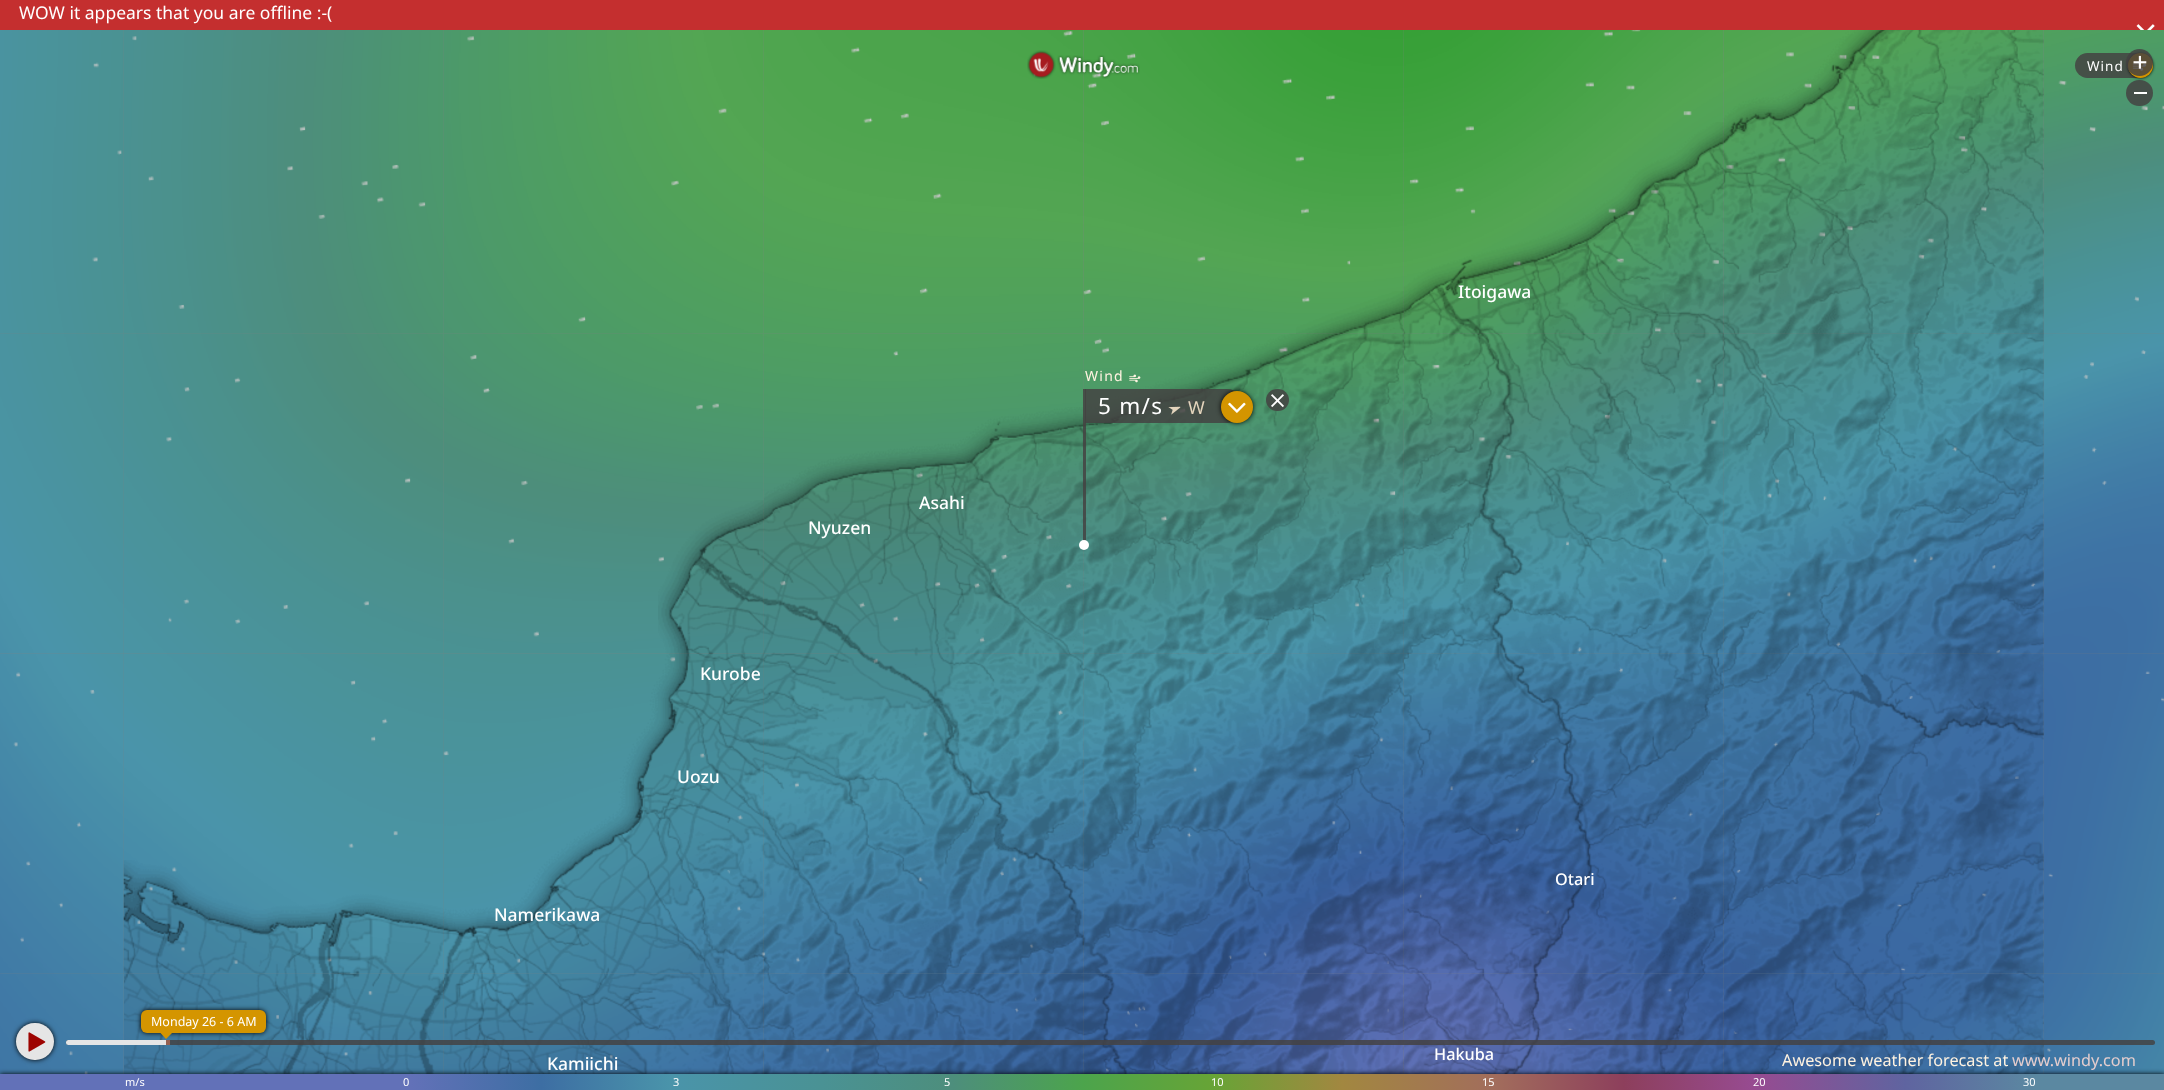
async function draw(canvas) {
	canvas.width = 2164;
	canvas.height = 1090;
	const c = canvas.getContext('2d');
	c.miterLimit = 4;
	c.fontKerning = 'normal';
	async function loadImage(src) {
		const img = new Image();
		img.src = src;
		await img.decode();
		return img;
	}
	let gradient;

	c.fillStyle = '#808080';
	c.fillRect(0, 0, 2164, 1090);
	c.fillStyle = '#c42f2f';
	c.fillRect(0, 0, 2164, 30);
	c.font = '17.5px Noto Sans';
	c.fillStyle = '#fff';
	c.fillText('WOW it appears that you are offline :-(', 19, 19);
	c.drawImage(await loadImage('img1.png'), 2136, 24, 19, 6);
	c.drawImage(await loadImage('img17.png'), 763, 333, 321, 321);
	c.drawImage(await loadImage('img18.png'), 1083, 333, 321, 321);
	c.drawImage(await loadImage('img9.png'), 763, 30, 321, 304);
	c.drawImage(await loadImage('img16.png'), 443, 333, 321, 321);
	c.drawImage(await loadImage('img8.png'), 443, 30, 321, 304);
	c.drawImage(await loadImage('img15.png'), 123, 333, 321, 321);
	c.drawImage(await loadImage('img7.png'), 123, 30, 321, 304);
	c.drawImage(await loadImage('img14.png'), 0, 333, 124, 321);
	c.drawImage(await loadImage('img6.png'), 0, 30, 124, 304);
	c.drawImage(await loadImage('img10.png'), 1084, 30, 320, 304);
	c.drawImage(await loadImage('img25.png'), 763, 654, 321, 320);
	c.drawImage(await loadImage('img26.png'), 1083, 653, 321, 321);
	c.drawImage(await loadImage('img19.png'), 1403, 333, 321, 321);
	c.drawImage(await loadImage('img11.png'), 1403, 30, 321, 304);
	c.drawImage(await loadImage('img27.png'), 1403, 653, 321, 321);
	c.drawImage(await loadImage('img20.png'), 1723, 333, 321, 321);
	c.drawImage(await loadImage('img12.png'), 1724, 30, 320, 304);
	c.drawImage(await loadImage('img35.png'), 1404, 973, 320, 101);
	c.drawImage(await loadImage('img28.png'), 1723, 653, 321, 321);
	c.drawImage(await loadImage('img21.png'), 2043, 333, 121, 321);
	c.drawImage(await loadImage('img13.png'), 2044, 30, 120, 304);
	c.drawImage(await loadImage('img24.png'), 443, 654, 321, 320);
	c.drawImage(await loadImage('img33.png'), 763, 973, 321, 101);
	c.drawImage(await loadImage('img32.png'), 443, 973, 321, 101);
	c.drawImage(await loadImage('img23.png'), 123, 654, 321, 320);
	c.drawImage(await loadImage('img31.png'), 123, 973, 321, 101);
	c.drawImage(await loadImage('img22.png'), 0, 654, 124, 320);
	c.drawImage(await loadImage('img36.png'), 1723, 973, 321, 101);
	c.drawImage(await loadImage('img29.png'), 2043, 653, 121, 321);
	c.drawImage(await loadImage('img30.png'), 0, 973, 124, 101);
	c.drawImage(await loadImage('img34.png'), 1083, 973, 321, 101);
	c.drawImage(await loadImage('img37.png'), 2043, 973, 121, 101);
	c.drawImage(await loadImage('img38.png'), 13, 30, 2151, 1044);
	c.drawImage(await loadImage('img2.png'), 1027, 50, 29, 29);
	c.drawImage(await loadImage('img3.png'), 1057, 55, 83, 24);
	c.fillStyle = '#444141d6';
	c.beginPath();
	c.roundRect(2075, 53, 78, 25, 12.5);
	c.fill();
	c.letterSpacing = '1px';
	c.font = '13.5px Noto Sans';
	c.fillStyle = '#fff';
	c.fillText('Wind', 2087, 71);
	c.fillStyle = '#000';
	c.filter = 'blur(1.5px)';
	c.beginPath();
	c.roundRect(2128, 53, 25, 25, 12.5);
	c.fill();
	c.filter = 'none';
	c.fillStyle = '#d49500';
	c.beginPath();
	c.arc(2140.5, 65.5, 12.5, 0, 2 * Math.PI);
	c.fill();
	c.drawImage(await loadImage('img4.png'), 2132, 61, 15, 10);
	c.fillStyle = '#444141d6';
	c.beginPath();
	c.arc(2139.5, 62.5, 13.5, 0, 2 * Math.PI);
	c.fill();
	c.drawImage(await loadImage('img5.png'), 2133, 55, 14, 14);
	c.beginPath();
	c.roundRect(2126, 80, 27, 26, 13);
	c.fill();
	c.fillStyle = '#fff';
	c.fillRect(2134, 92, 13, 2);
	c.drawImage(await loadImage('img43.png'), 763, 407, 321, 247);
	c.drawImage(await loadImage('img44.png'), 1083, 333, 321, 321);
	c.drawImage(await loadImage('img39.png'), 1296, 291, 108, 43);
	c.drawImage(await loadImage('img49.png'), 763, 653, 321, 321);
	c.drawImage(await loadImage('img50.png'), 1083, 653, 321, 321);
	c.drawImage(await loadImage('img45.png'), 1403, 333, 321, 321);
	c.drawImage(await loadImage('img40.png'), 1403, 122, 321, 212);
	c.drawImage(await loadImage('img51.png'), 1403, 653, 321, 321);
	c.drawImage(await loadImage('img46.png'), 1723, 333, 321, 321);
	c.drawImage(await loadImage('img41.png'), 1723, 30, 321, 304);
	c.drawImage(await loadImage('img42.png'), 658, 500, 106, 154);
	c.drawImage(await loadImage('img48.png'), 443, 653, 321, 321);
	c.drawImage(await loadImage('img47.png'), 123, 860, 321, 114);
	c.drawImage(await loadImage('img52.png'), 1723, 653, 321, 321);
	c.drawImage(await loadImage('img53.png'), 124, 974, 320, 100);
	c.drawImage(await loadImage('img54.png'), 444, 974, 320, 100);
	c.drawImage(await loadImage('img55.png'), 764, 974, 320, 100);
	c.drawImage(await loadImage('img56.png'), 1084, 974, 320, 100);
	c.drawImage(await loadImage('img57.png'), 1404, 974, 320, 100);
	c.drawImage(await loadImage('img58.png'), 1724, 974, 320, 100);
	c.letterSpacing = '0px';
	c.font = '500 17.5px Noto Sans';
	for (const [text, x, y] of [
		['Itoigawa', 1458, 298],
		['Asahi', 919, 509],
		['Nyuzen', 808, 534],
		['Kurobe', 700, 680],
		['Uozu', 677, 783],
		['Namerikawa', 494, 921],
	]) {
		c.fillText(text, x, y);
	}
	c.font = '500 16.25px Noto Sans';
	c.fillText('Otari', 1555, 885);
	c.fillText('Hakuba', 1434, 1060);
	c.font = '500 17.5px Noto Sans';
	c.fillText('Kamiichi', 547, 1070);
	c.fillStyle = '#444141d6';
	c.fillRect(1083, 389, 3, 156);
	c.fillStyle = '#fff';
	c.beginPath();
	c.arc(1084, 545, 5, 0, 2 * Math.PI);
	c.fill();
	c.fillStyle = '#444141d6';
	c.beginPath();
	c.roundRect(1085, 389, 159, 34, [0, 17, 17, 0]);
	c.fill();
	c.letterSpacing = '1.25px';
	c.font = '14px Noto Sans';
	c.fillStyle = '#fff3e1';
	c.fillText('Wind', 1085, 381);
	c.drawImage(await loadImage('img59.png'), 1129, 374, 12, 9);
	c.font = '22.5px Noto Sans';
	c.fillStyle = '#fff';
	c.fillText('5 m/s', 1098, 414);
	c.drawImage(await loadImage('img60.png'), 1168, 406, 13, 9);
	c.font = '18px Noto Sans';
	c.fillStyle = '#e4d5bd';
	c.fillText('W', 1188, 414);
	c.fillStyle = '#000';
	c.filter = 'blur(2.5px)';
	c.beginPath();
	c.roundRect(1221, 391, 32, 32, 16);
	c.fill();
	c.filter = 'none';
	c.fillStyle = '#d49500';
	c.beginPath();
	c.arc(1237, 407, 16, 0, 2 * Math.PI);
	c.fill();
	c.drawImage(await loadImage('img61.png'), 1228, 402, 18, 11);
	c.fillStyle = '#444141d6';
	c.beginPath();
	c.roundRect(1266, 389, 23, 22, 11);
	c.fill();
	c.drawImage(await loadImage('img62.png'), 1271, 394, 13, 14);
	c.fillStyle = '#000';
	c.filter = 'blur(2.5px)';
	c.beginPath();
	c.roundRect(16, 1023, 38, 37, 18.5);
	c.fill();
	c.filter = 'none';
	c.fillStyle = '#e5e5e5';
	c.beginPath();
	c.roundRect(16, 1023, 38, 37, 18.5);
	c.fill();
	c.drawImage(await loadImage('img63.png'), 28, 1032, 18, 20);
	c.fillStyle = '#000';
	c.filter = 'blur(2.5px)';
	c.beginPath();
	c.roundRect(141, 1010, 125, 23, 6);
	c.fill();
	c.filter = 'none';
	c.fillStyle = '#d49500';
	c.beginPath();
	c.roundRect(141, 1010, 125, 23, 6);
	c.fill();
	c.letterSpacing = '0px';
	c.font = '12.5px Noto Sans';
	c.fillStyle = '#fff';
	c.fillText('Monday 26 - 6 AM', 151, 1026);
	c.fillStyle = '#d49500';
	c.beginPath();
	c.moveTo(160, 1032.5);
	c.lineTo(172.5, 1032.5);
	c.lineTo(166, 1039);
	c.closePath();
	c.fill();
	c.fillStyle = '#444141d6';
	c.beginPath();
	c.roundRect(66, 1040, 2089, 5, 2.5);
	c.fill();
	c.fillStyle = '#e5e5e5';
	c.beginPath();
	c.roundRect(66, 1040, 100, 5, [2.5, 0, 0, 2.5]);
	c.fill();
	c.fillStyle = '#946051';
	c.fillRect(166, 1040, 4, 5);
	c.fillStyle = '#000';
	c.filter = 'blur(2.5px)';
	c.beginPath();
	c.rect(0, 1074, 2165, 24);
	c.fill();
	c.filter = 'none';
	c.font = '16.25px Noto Sans';
	c.fillStyle = '#fff3e1';
	c.fillText('Awesome weather forecast at', 1782, 1066);
	c.fillStyle = '#e6cece';
	c.fillText('www.windy.com', 2012, 1066);
	gradient = c.createLinearGradient(0, 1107, 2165, 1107);
	gradient.addColorStop(0, '#6271b8');
	gradient.addColorStop(0.19, '#6271b8');
	gradient.addColorStop(0.25, '#3d6ea3');
	gradient.addColorStop(0.31, '#4a94aa');
	gradient.addColorStop(0.38, '#4a9294');
	gradient.addColorStop(0.44, '#4d8e7c');
	gradient.addColorStop(0.5, '#4ca44c');
	gradient.addColorStop(0.56, '#67a436');
	gradient.addColorStop(0.62, '#a28740');
	gradient.addColorStop(0.69, '#a26d5c');
	gradient.addColorStop(0.75, '#8d3f5c');
	gradient.addColorStop(0.81, '#974b91');
	gradient.addColorStop(0.88, '#5f64a0');
	gradient.addColorStop(0.94, '#5b88a1');
	gradient.addColorStop(1, '#5b88a1');
	c.fillStyle = gradient;
	c.fillRect(0, 1074, 2164, 16);
	c.font = '11px Noto Sans';
	c.fillStyle = '#fff';
	for (const [text, x, y] of [
		['m/s', 125, 1086],
		['0', 403, 1086],
		['3', 673, 1086],
		['5', 944, 1086],
		['10', 1211, 1086],
		['15', 1482, 1086],
		['20', 1753, 1086],
		['30', 2023, 1086],
	]) {
		c.fillText(text, x, y);
	}
}

draw(document.querySelector('canvas'));
